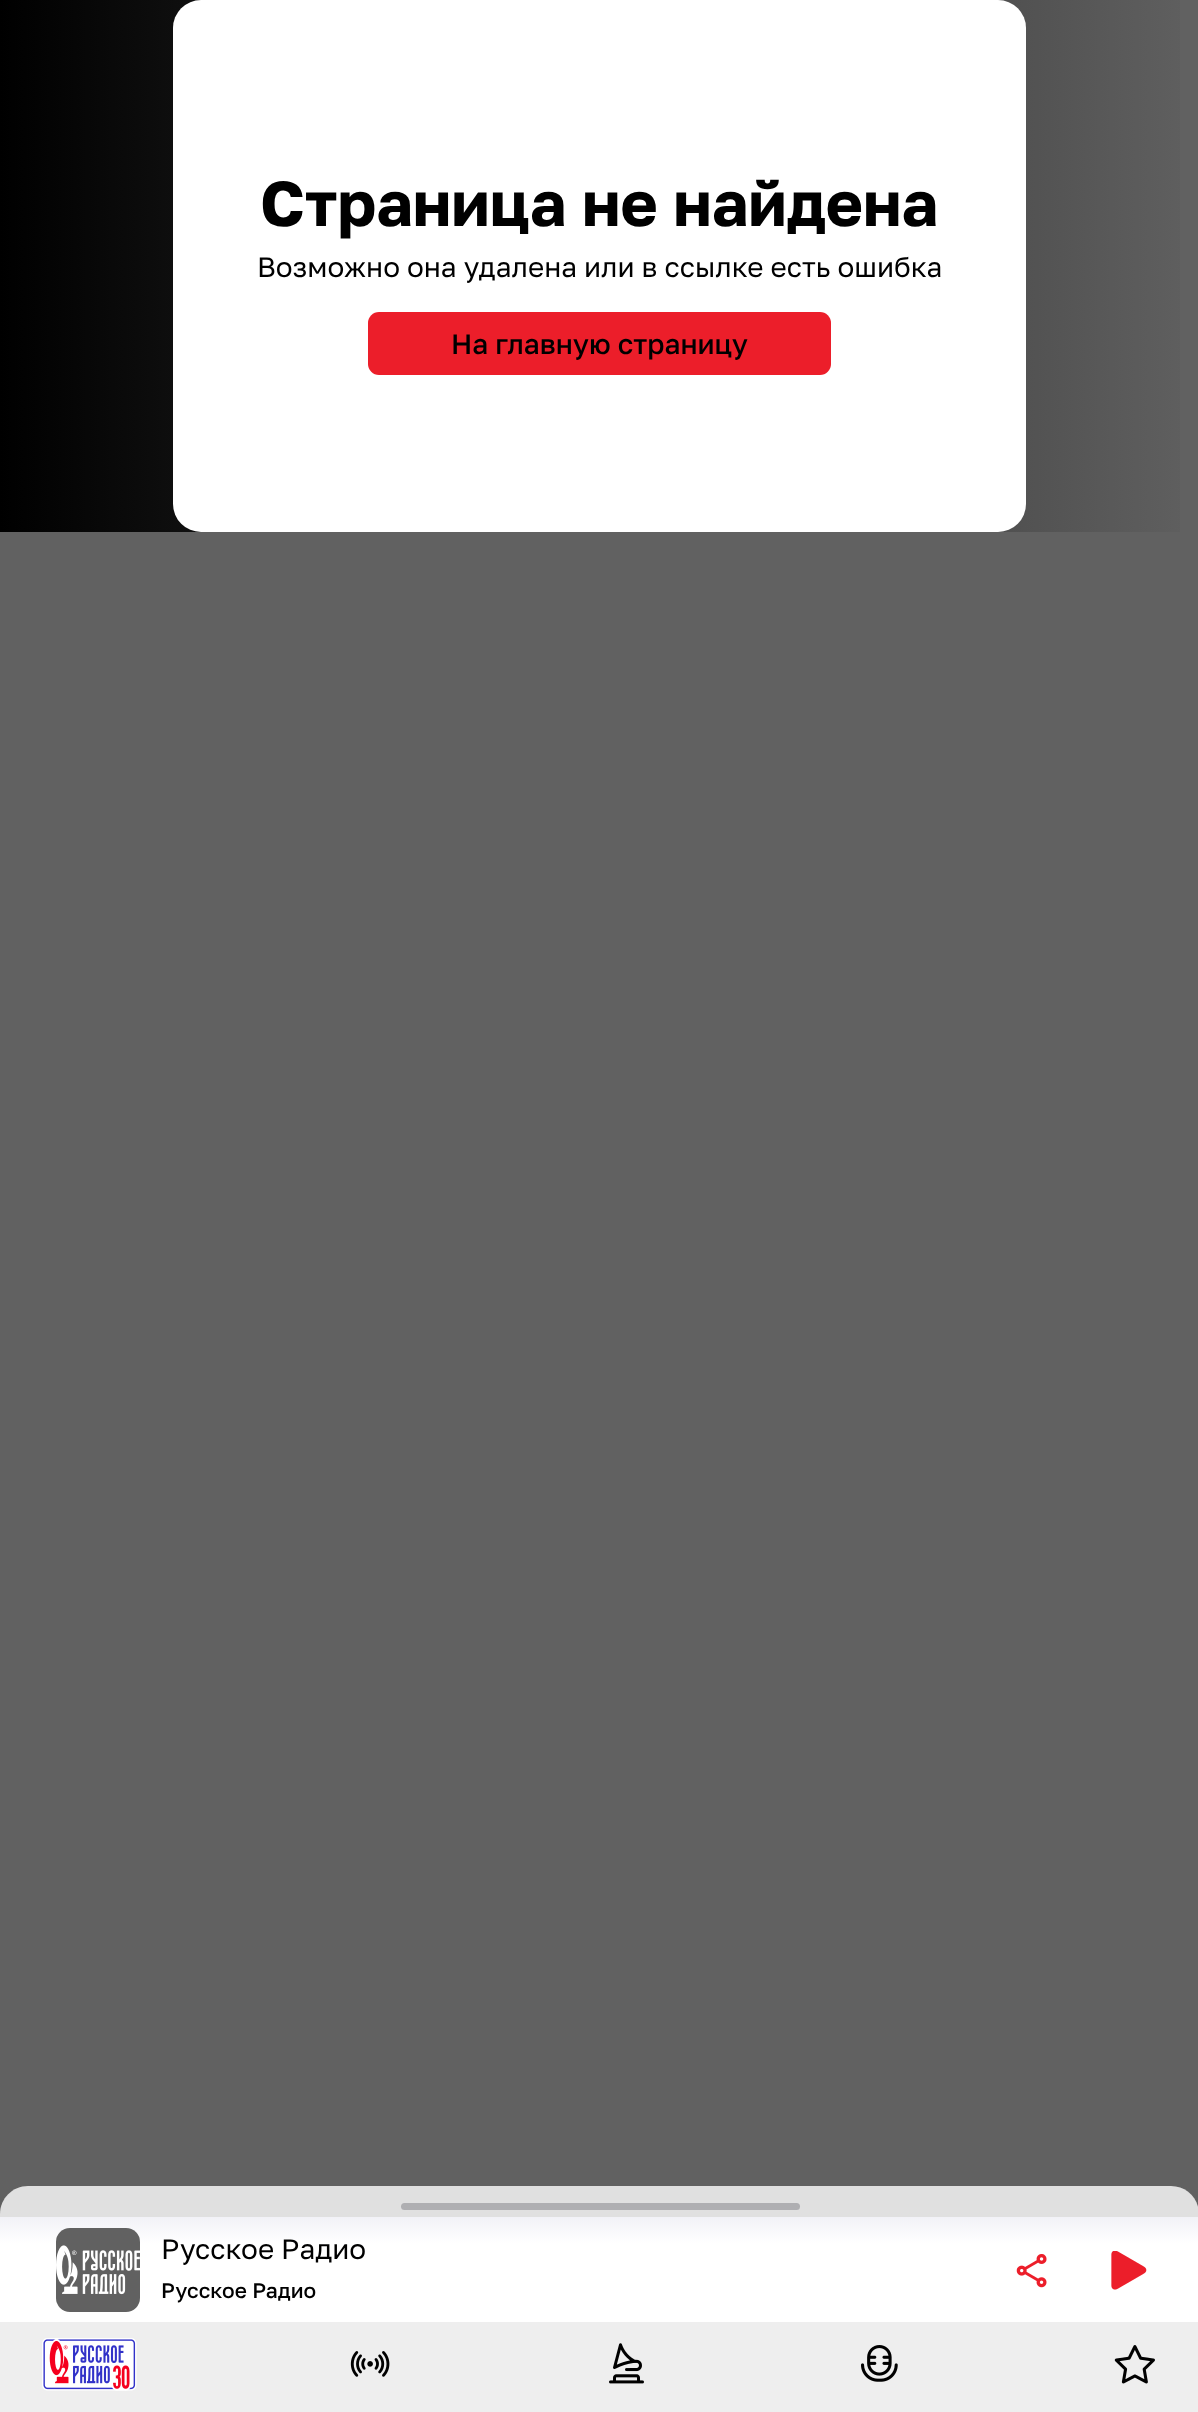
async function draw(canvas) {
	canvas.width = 1198;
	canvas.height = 2412;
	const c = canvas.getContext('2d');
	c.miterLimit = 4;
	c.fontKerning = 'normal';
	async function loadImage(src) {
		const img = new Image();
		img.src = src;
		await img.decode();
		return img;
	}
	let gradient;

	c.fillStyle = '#616161';
	c.fillRect(0, 0, 1198, 2412);
	gradient = c.createLinearGradient(0, 266, 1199, 266);
	gradient.addColorStop(0, '#000');
	gradient.addColorStop(1, '#606060');
	c.fillStyle = gradient;
	c.fillRect(0, 0, 1180, 532);
	c.fillStyle = '#fff';
	c.beginPath();
	c.roundRect(173, 0, 853, 532, 28);
	c.fill();
	c.font = 'bold 63px Golos Text';
	c.fillStyle = '#000';
	c.fillText('Страница не найдена', 260, 226);
	c.font = '28px Golos Text';
	c.fillText('Возможно она удалена или в ссылке есть ошибка', 257, 277);
	c.fillStyle = '#ec1e2a';
	c.beginPath();
	c.roundRect(368, 312, 463, 63, 11);
	c.fill();
	c.font = '500 28px Golos Text';
	c.fillStyle = '#000';
	c.fillText('На главную страницу', 451, 354);
	c.fillStyle = '#e0e0e0';
	c.beginPath();
	c.moveTo(28, 2186);
	c.lineTo(1171, 2186);
	c.bezierCurveTo(1186.5, 2186, 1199, 2198.5, 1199, 2214);
	c.lineTo(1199, 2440);
	c.lineTo(0, 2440);
	c.lineTo(0, 2214);
	c.bezierCurveTo(0, 2198.5, 12.5, 2186, 28, 2186);
	c.closePath();
	c.fill();
	c.fillStyle = '#eee';
	c.fillRect(0, 2322, 1198, 90);
	c.drawImage(await loadImage('img1.png'), 42, 2338, 95, 53);
	c.drawImage(await loadImage('img2.png'), 350, 2351, 40, 26);
	c.drawImage(await loadImage('img3.png'), 609, 2343, 35, 41);
	c.drawImage(await loadImage('img4.png'), 861, 2345, 37, 37);
	c.drawImage(await loadImage('img5.png'), 1114, 2345, 41, 39);
	c.fillStyle = '#afafb2';
	c.beginPath();
	c.roundRect(401, 2203, 399, 7, 3.5);
	c.fill();
	gradient = c.createLinearGradient(599, 2322, 599, 2217);
	gradient.addColorStop(0, '#fff');
	gradient.addColorStop(0.75, '#fff');
	gradient.addColorStop(1, '#f2f2f7');
	c.fillStyle = gradient;
	c.fillRect(0, 2217, 1198, 105);
	c.fillStyle = '#616161';
	c.beginPath();
	c.roundRect(56, 2228, 84, 84, 14);
	c.fill();
	c.drawImage(await loadImage('img6.png'), 56, 2245, 84, 50);
	c.font = '28px Golos Text';
	c.fillStyle = '#000';
	c.fillText('Русское Радио', 161, 2259);
	c.font = '500 21px Golos Text';
	c.fillText('Русское Радио', 161, 2298);
	c.drawImage(await loadImage('img7.png'), 1016, 2254, 31, 34);
	c.drawImage(await loadImage('img8.png'), 1111, 2251, 36, 39);
}

draw(document.querySelector('canvas'));
